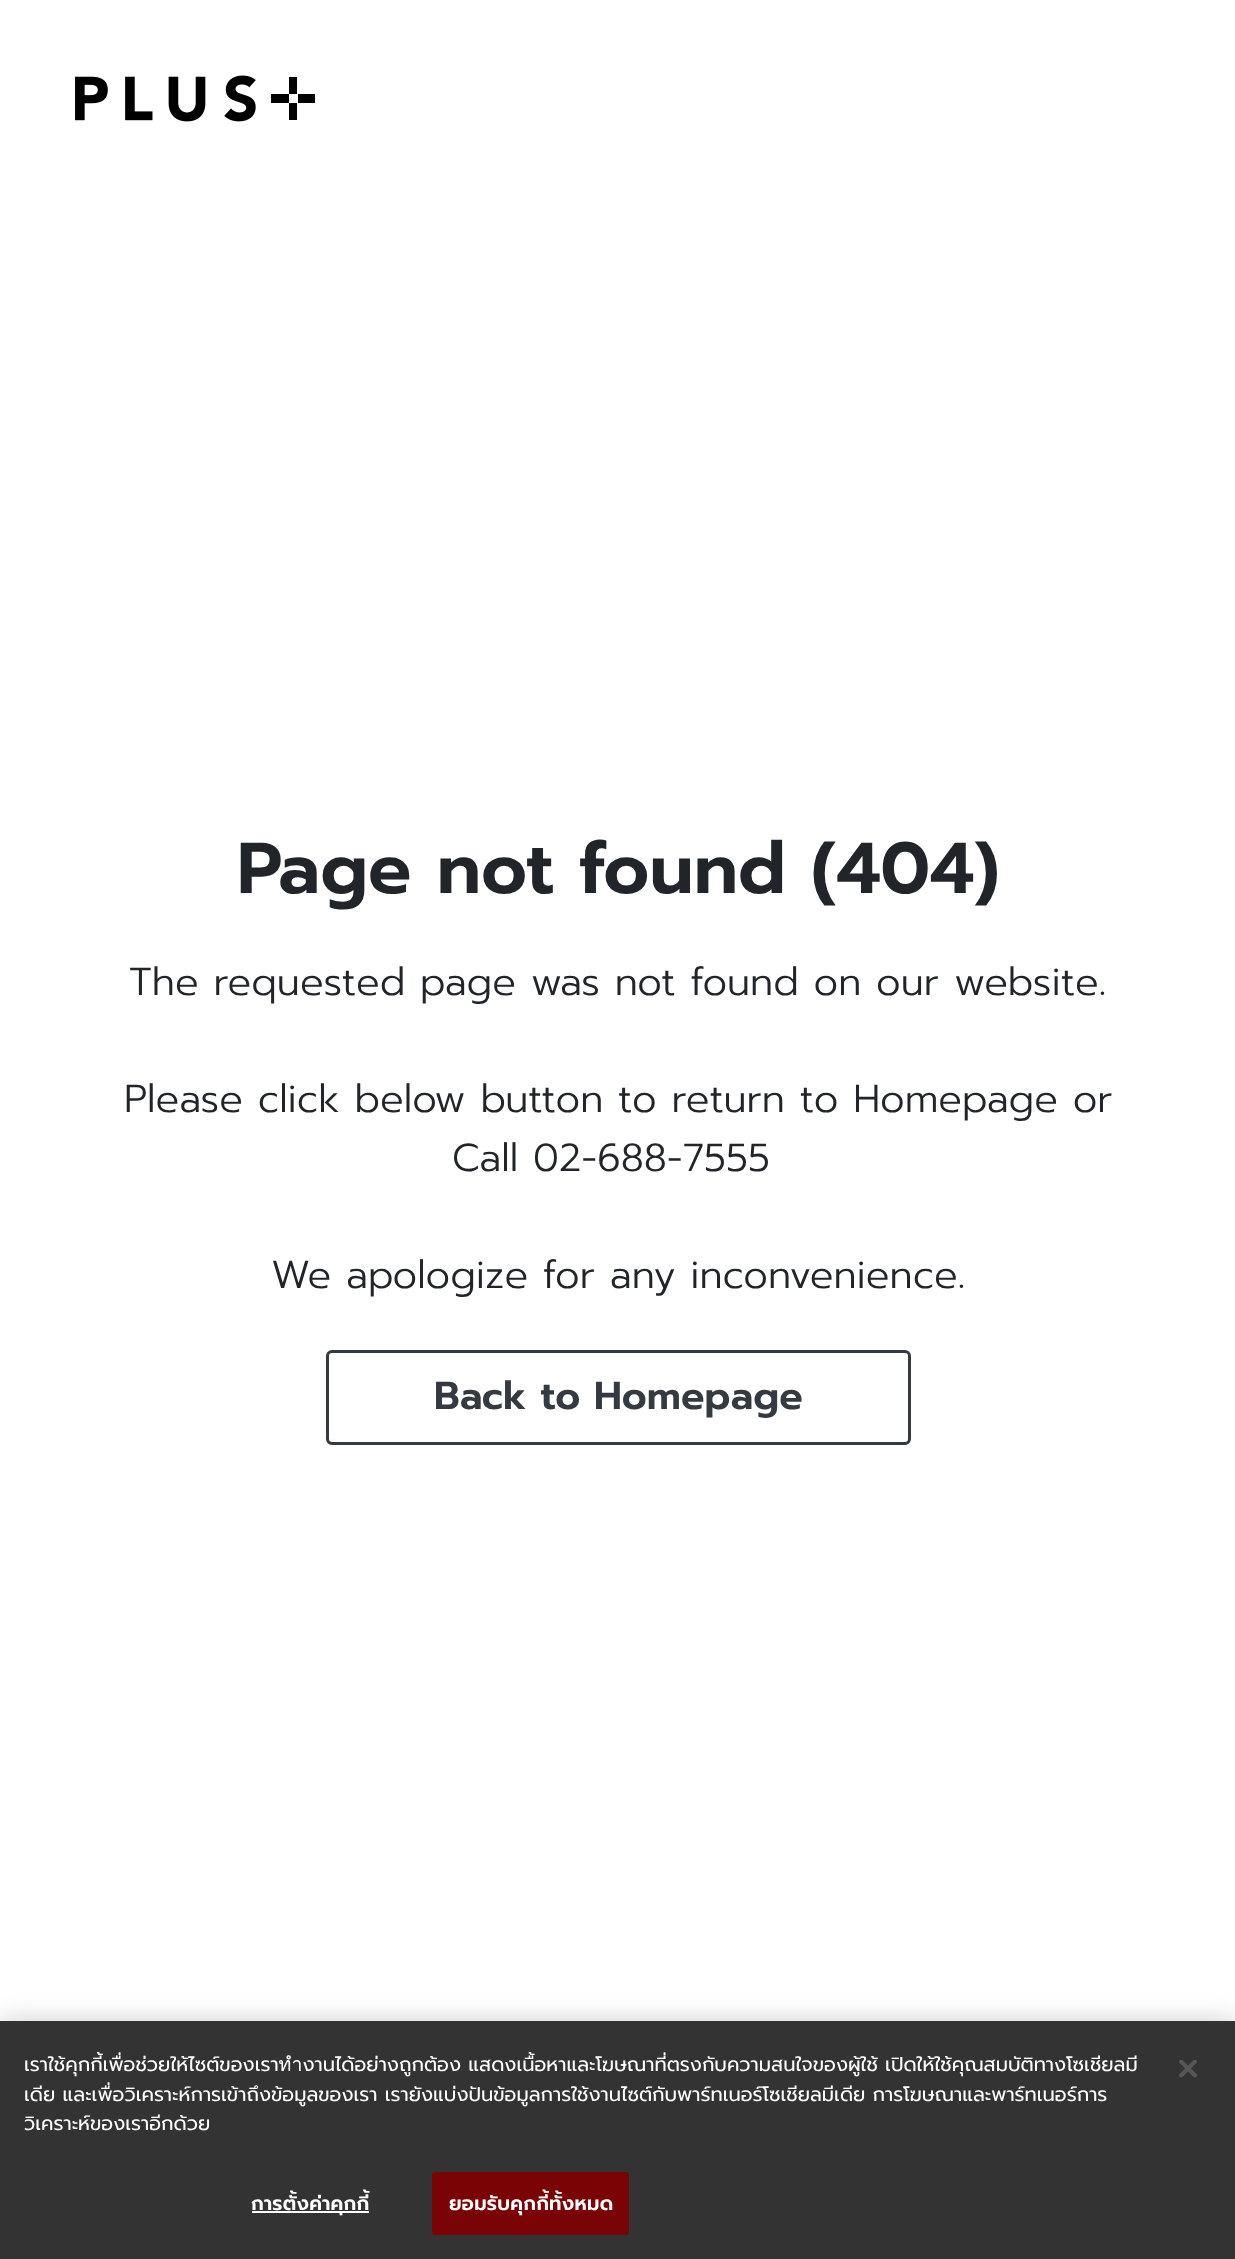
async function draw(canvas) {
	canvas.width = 1235;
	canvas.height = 2259;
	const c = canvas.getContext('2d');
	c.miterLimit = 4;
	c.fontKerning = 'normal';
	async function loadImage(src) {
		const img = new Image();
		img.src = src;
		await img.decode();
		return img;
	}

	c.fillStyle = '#fff';
	c.fillRect(0, 0, 1235, 2259);
	c.drawImage(await loadImage('img1.png'), 75, 75, 240, 47);
	c.font = '600 72px Prompt';
	c.fillStyle = '#212529';
	c.fillText('Page not found (404)', 237, 893);
	c.font = '300 39px Prompt';
	for (const [text, x, y] of [
		['The requested page was not found on our website.', 129, 995],
		['Please click below button to return to Homepage or', 124, 1112],
		['Call 02-688-7555', 452, 1171],
		['We apologize for any inconvenience.', 271, 1288],
	]) {
		c.fillText(text, x, y);
	}
	c.beginPath();
	c.roundRect(327.5, 1351.5, 582, 92, 4.5);
	c.strokeStyle = '#343a40';
	c.lineWidth = 3;
	c.stroke();
	c.font = '600 39px Prompt';
	c.fillStyle = '#343a40';
	c.fillText('Back to Homepage', 434, 1409);
	c.fillStyle = '#00000033';
	c.filter = 'blur(13.5px)';
	c.beginPath();
	c.rect(0, 2021, 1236, 238);
	c.fill();
	c.filter = 'none';
	c.fillStyle = '#333';
	c.fillRect(0, 2021, 1235, 238);
	c.font = '19.5px Prompt';
	c.fillStyle = '#fff';
	c.fillText('เราใช้คุกกี้เพื่อช่วยให้ไซต์ของเราทำงานได้อย่างถูกต้อง แสดงเนื้อหาและโฆษณาที่ตรงกับความสนใจของผู้ใช้ เปิดให้ใช้คุณสมบัติทางโซเชียลมี', 24, 2071);
	c.save();
	c.beginPath();
	c.rect(24, 2051, 1127, 106);
	c.clip();
	c.fillText('เดีย และเพื่อวิเคราะห์การเข้าถึงข้อมูลของเรา เรายังแบ่งปันข้อมูลการใช้งานไซต์กับพาร์ทเนอร์โซเชียลมีเดีย การโฆษณาและพาร์ทเนอร์การ', 24, 2101);
	c.fillText('วิเคราะห์ของเราอีกด้วย', 24, 2130);
	c.restore();
	c.fillRect(252, 2211, 117, 2);
	c.letterSpacing = '0.25px';
	c.font = '600 19.5px Prompt';
	c.fillText('การตั้งค่าคุกกี้', 251, 2210);
	c.fillStyle = '#7a0405';
	c.beginPath();
	c.roundRect(433, 2173, 195, 61, 2);
	c.fill();
	c.strokeStyle = '#7a0405';
	c.lineWidth = 2;
	c.stroke();
	c.fillStyle = '#fff';
	c.fillText('ยอมรับคุกกี้ทั้งหมด', 449, 2210);
	c.drawImage(await loadImage('img2.png'), 1179, 2060, 18, 18);
}

draw(document.querySelector('canvas'));
